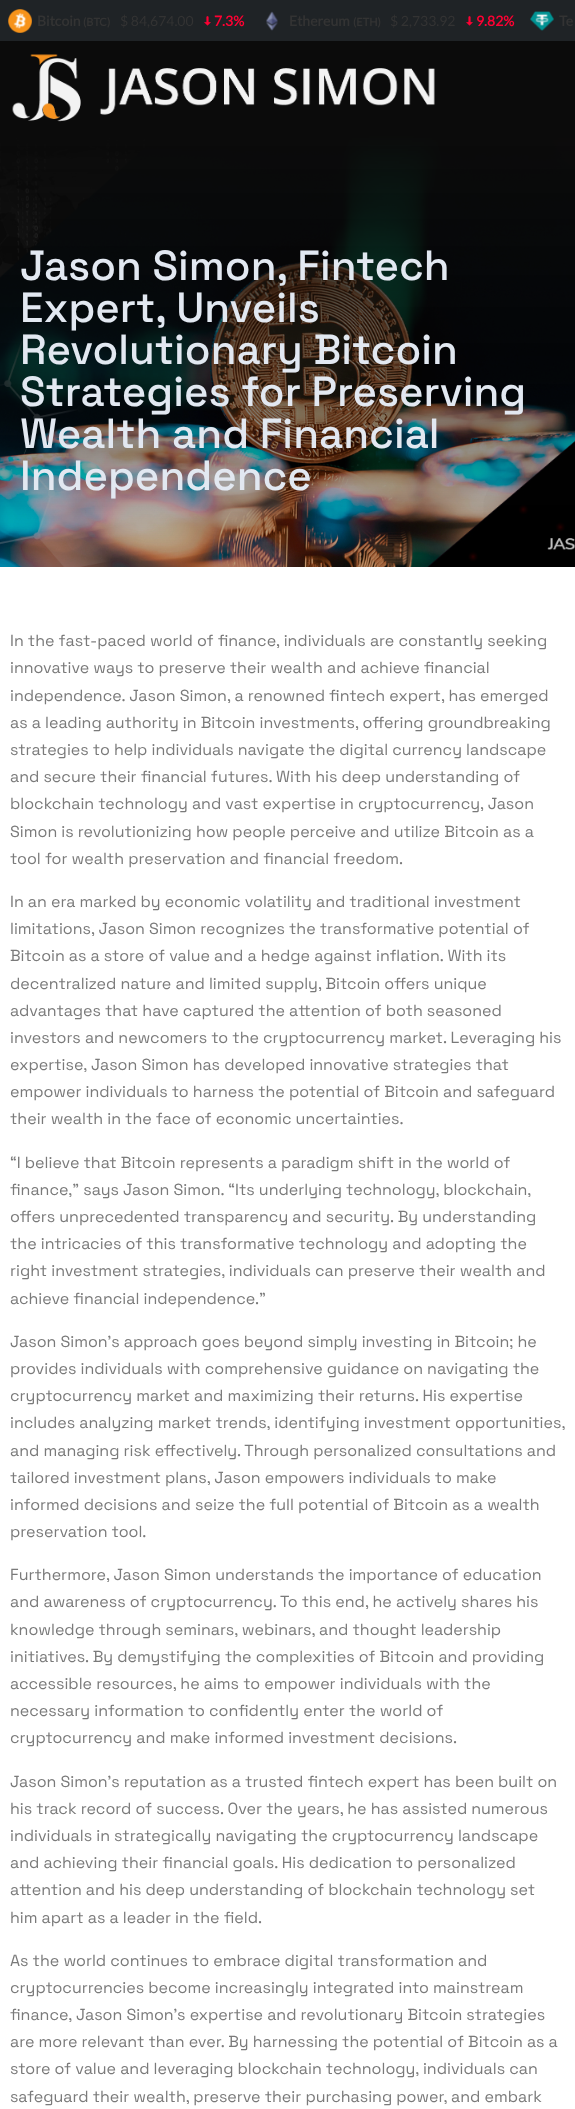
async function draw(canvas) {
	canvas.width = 575;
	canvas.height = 2109;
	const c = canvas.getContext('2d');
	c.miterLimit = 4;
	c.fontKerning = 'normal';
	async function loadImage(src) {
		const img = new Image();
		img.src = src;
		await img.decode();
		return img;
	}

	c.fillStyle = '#0b0b0b';
	c.fillRect(0, 0, 575, 2109);
	c.fillStyle = '#1f2326';
	c.fillRect(0, 0, 575, 41);
	c.drawImage(await loadImage('img1.png'), 8, 9, 24, 24);
	c.font = 'bold 14px Lato';
	c.fillStyle = '#333';
	c.fillText('Bitcoin', 37, 26);
	c.font = 'bold 11px Lato';
	c.fillText('(BTC)', 83, 26);
	c.font = '14px Lato';
	c.fillText('$ 84,674.00', 120, 26);
	c.drawImage(await loadImage('img2.png'), 204, 16, 7, 10);
	c.font = 'bold 14px Lato';
	c.fillStyle = '#f03';
	c.fillText('7.3%', 214, 26);
	c.drawImage(await loadImage('img3.png'), 266, 11, 12, 20);
	c.fillStyle = '#333';
	c.fillText('Ethereum', 289, 26);
	c.font = 'bold 11px Lato';
	c.fillText('(ETH)', 353, 26);
	c.font = '14px Lato';
	c.fillText('$ 2,733.92', 390, 26);
	c.drawImage(await loadImage('img2.png'), 466, 16, 7, 10);
	c.font = 'bold 14px Lato';
	c.fillStyle = '#f03';
	c.fillText('9.82%', 476, 26);
	c.drawImage(await loadImage('img4.png'), 530, 11, 24, 20);
	c.fillStyle = '#333';
	c.fillText('Te', 559, 26);
	c.drawImage(await loadImage('img5.png'), 12, 54, 423, 68);
	c.drawImage(await loadImage('img6.png'), 0, 135, 575, 432);
	c.font = '500 42px Space Grotesk';
	c.fillStyle = '#e2e8f1';
	for (const [text, x, y] of [
		['Jason Simon, Fintech', 20, 280],
		['Expert, Unveils', 20, 322],
		['Revolutionary Bitcoin', 20, 364],
		['Strategies for Preserving', 20, 406],
		['Wealth and Financial', 20, 448],
		['Independence', 20, 490],
	]) {
		c.fillText(text, x, y);
	}
	c.fillStyle = '#fff';
	c.fillRect(0, 567, 575, 1542);
	c.font = '16px Space Grotesk';
	c.fillStyle = '#7a7a7a';
	for (const [text, x, y] of [
		['In the fast-paced world of finance, individuals are constantly seeking', 10, 646],
		['innovative ways to preserve their wealth and achieve financial', 10, 673],
		['independence. Jason Simon, a renowned fintech expert, has emerged', 10, 701],
		['as a leading authority in Bitcoin investments, offering groundbreaking', 10, 728],
		['strategies to help individuals navigate the digital currency landscape', 10, 755],
		['and secure their financial futures. With his deep understanding of', 10, 782],
		['blockchain technology and vast expertise in cryptocurrency, Jason', 10, 809],
		['Simon is revolutionizing how people perceive and utilize Bitcoin as a', 10, 837],
		['tool for wealth preservation and financial freedom.', 10, 864],
		['In an era marked by economic volatility and traditional investment', 10, 907],
		['limitations, Jason Simon recognizes the transformative potential of', 10, 934],
		['Bitcoin as a store of value and a hedge against inflation. With its', 10, 961],
		['decentralized nature and limited supply, Bitcoin offers unique', 10, 989],
		['advantages that have captured the attention of both seasoned', 10, 1016],
		['investors and newcomers to the cryptocurrency market. Leveraging his', 10, 1043],
		['expertise, Jason Simon has developed innovative strategies that', 10, 1070],
		['empower individuals to harness the potential of Bitcoin and safeguard', 10, 1097],
		['their wealth in the face of economic uncertainties.', 10, 1124],
		['“I believe that Bitcoin represents a paradigm shift in the world of', 10, 1168],
		['finance,” says Jason Simon. “Its underlying technology, blockchain,', 10, 1195],
		['offers unprecedented transparency and security. By understanding', 10, 1222],
		['the intricacies of this transformative technology and adopting the', 10, 1249],
		['right investment strategies, individuals can preserve their wealth and', 10, 1276],
		['achieve financial independence.”', 10, 1304],
		['Jason Simon’s approach goes beyond simply investing in Bitcoin; he', 10, 1347],
		['provides individuals with comprehensive guidance on navigating the', 10, 1374],
		['cryptocurrency market and maximizing their returns. His expertise', 10, 1401],
		['includes analyzing market trends, identifying investment opportunities,', 10, 1428],
		['and managing risk effectively. Through personalized consultations and', 10, 1456],
		['tailored investment plans, Jason empowers individuals to make', 10, 1483],
		['informed decisions and seize the full potential of Bitcoin as a wealth', 10, 1510],
		['preservation tool.', 10, 1537],
		['Furthermore, Jason Simon understands the importance of education', 10, 1580],
		['and awareness of cryptocurrency. To this end, he actively shares his', 10, 1607],
		['knowledge through seminars, webinars, and thought leadership', 10, 1635],
		['initiatives. By demystifying the complexities of Bitcoin and providing', 10, 1662],
		['accessible resources, he aims to empower individuals with the', 10, 1689],
		['necessary information to confidently enter the world of', 10, 1716],
		['cryptocurrency and make informed investment decisions.', 10, 1743],
		['Jason Simon’s reputation as a trusted fintech expert has been built on', 10, 1787],
		['his track record of success. Over the years, he has assisted numerous', 10, 1814],
		['individuals in strategically navigating the cryptocurrency landscape', 10, 1841],
		['and achieving their financial goals. His dedication to personalized', 10, 1868],
		['attention and his deep understanding of blockchain technology set', 10, 1895],
		['him apart as a leader in the field.', 10, 1923],
		['As the world continues to embrace digital transformation and', 10, 1966],
		['cryptocurrencies become increasingly integrated into mainstream', 10, 1993],
		['finance, Jason Simon’s expertise and revolutionary Bitcoin strategies', 10, 2020],
		['are more relevant than ever. By harnessing the potential of Bitcoin as a', 10, 2047],
		['store of value and leveraging blockchain technology, individuals can', 10, 2074],
		['safeguard their wealth, preserve their purchasing power, and embark', 10, 2102],
	]) {
		c.fillText(text, x, y);
	}
}

draw(document.querySelector('canvas'));
